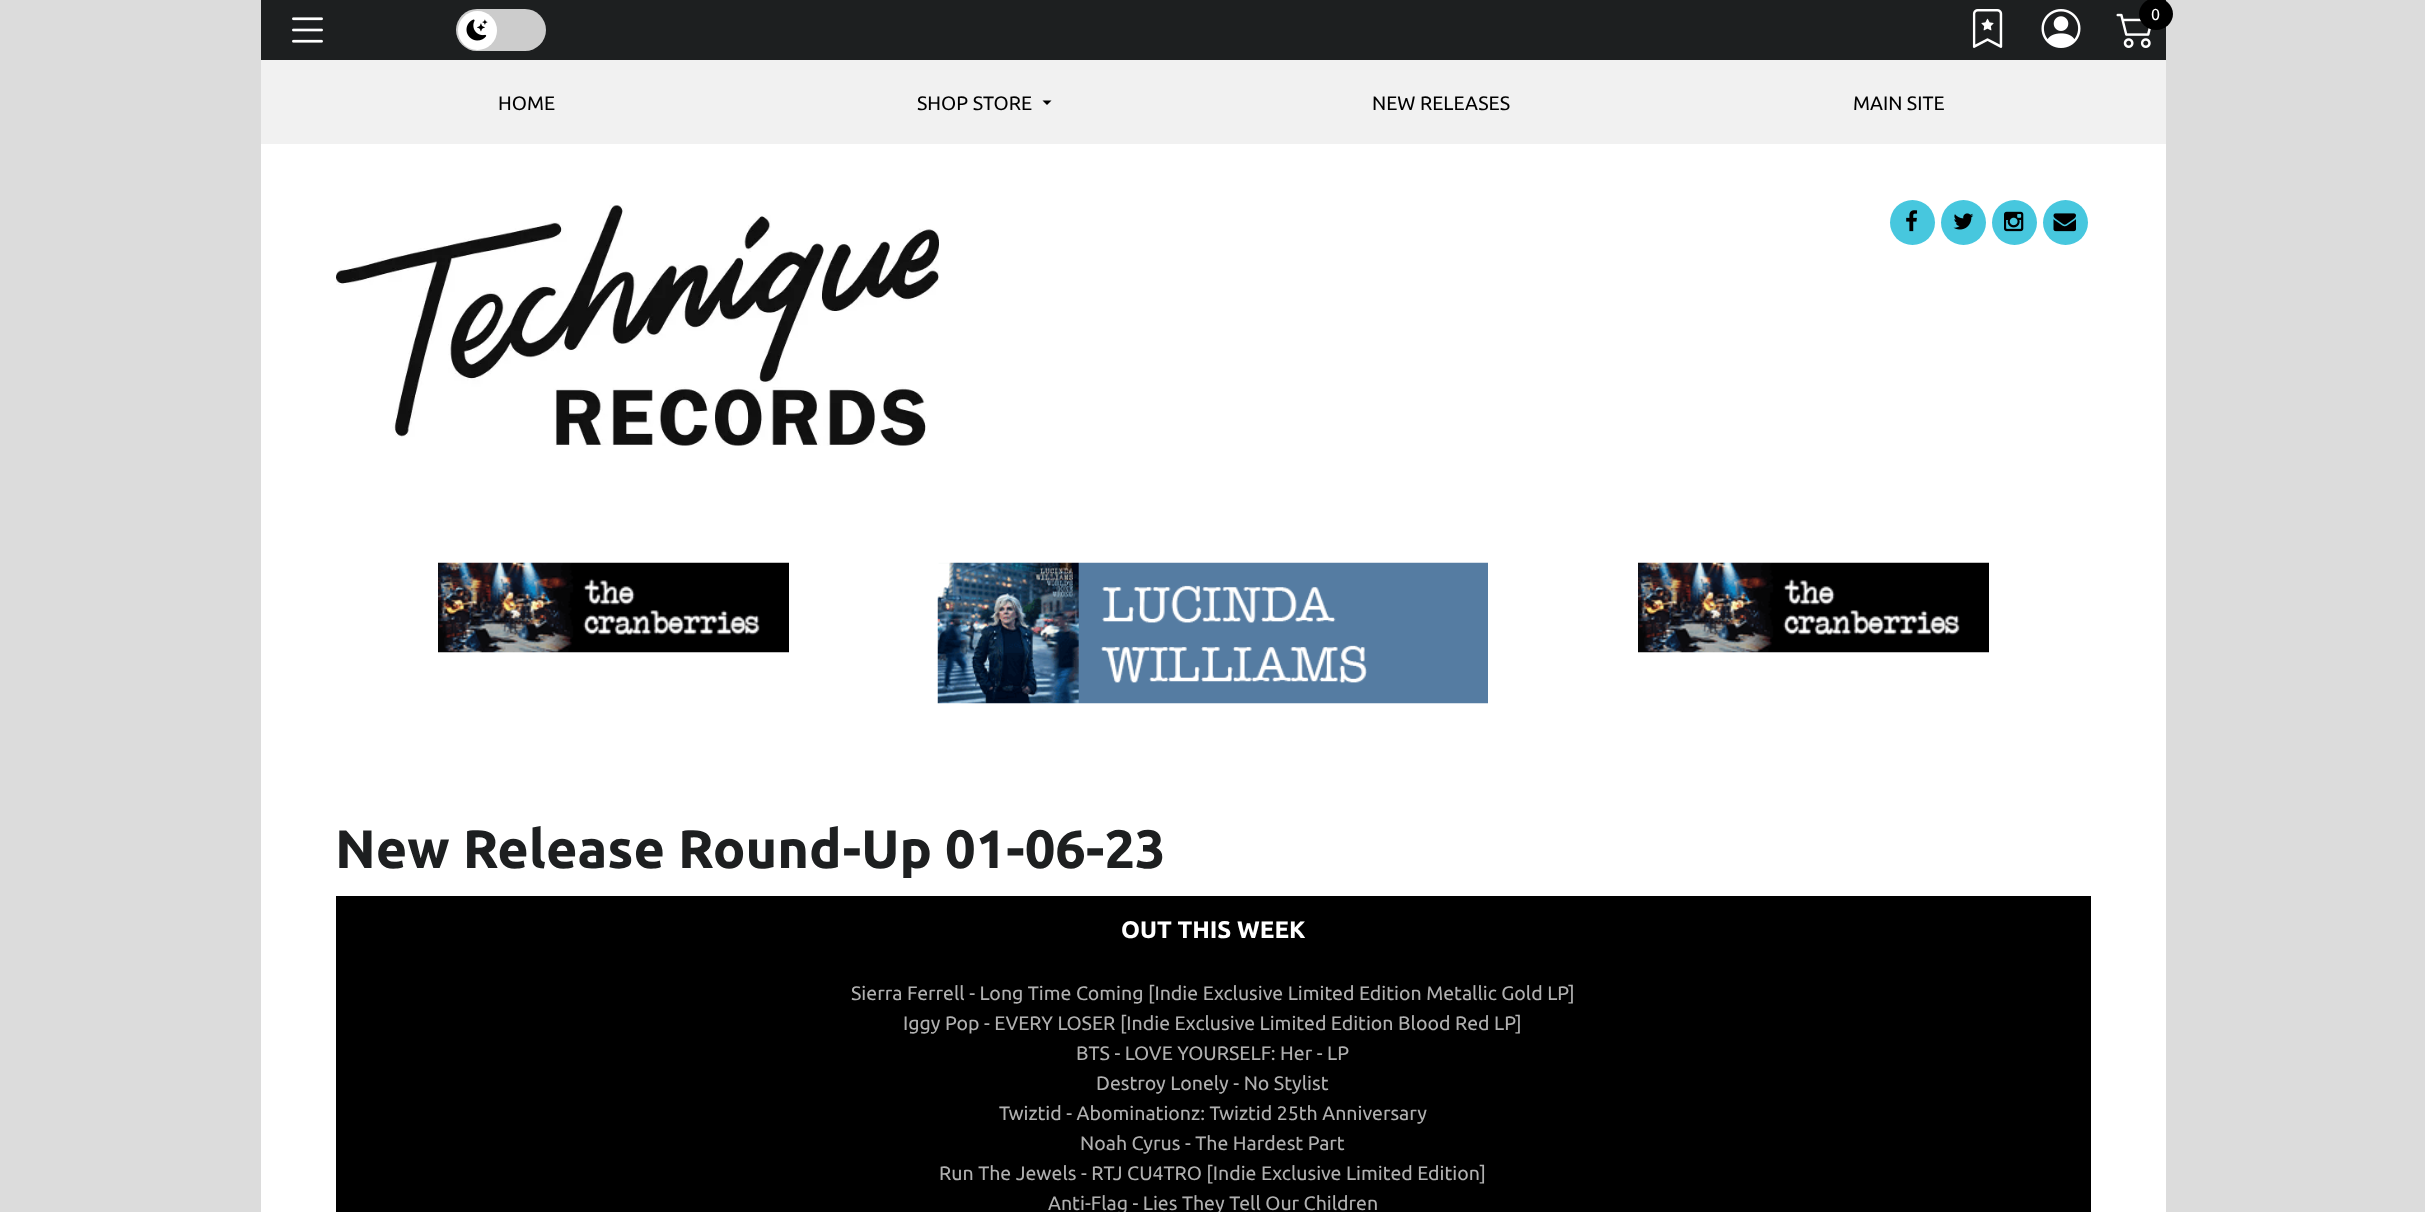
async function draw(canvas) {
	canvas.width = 2425;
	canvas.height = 1212;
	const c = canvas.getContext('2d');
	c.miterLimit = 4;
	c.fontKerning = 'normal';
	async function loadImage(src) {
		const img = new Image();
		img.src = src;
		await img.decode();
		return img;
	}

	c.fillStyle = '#dcdcdc';
	c.fillRect(0, 0, 2425, 1212);
	c.fillStyle = '#fff';
	c.fillRect(261, 144, 1905, 1068);
	c.fillStyle = '#1d1f20';
	c.fillRect(261, 0, 1905, 60);
	c.drawImage(await loadImage('img1.png'), 292, 17, 31, 26);
	c.fillStyle = '#ccc';
	c.beginPath();
	c.roundRect(456, 9, 90, 42, 21);
	c.fill();
	c.fillStyle = '#fff';
	c.beginPath();
	c.arc(477.5, 30.5, 19.5, 0, 2 * Math.PI);
	c.fill();
	c.drawImage(await loadImage('img2.png'), 466, 19, 22, 22);
	c.drawImage(await loadImage('img3.png'), 1972, 9, 31, 39);
	c.drawImage(await loadImage('img4.png'), 2041, 9, 40, 39);
	c.drawImage(await loadImage('img5.png'), 2116, 13, 35, 35);
	c.fillStyle = '#000';
	c.beginPath();
	c.ellipse(2156, 14, 17, 16, 0, 0, 2 * Math.PI);
	c.fill();
	c.font = '16px Ubuntu';
	c.fillStyle = '#fff';
	c.fillText('0', 2151, 20);
	c.fillStyle = '#f1f1f1';
	c.fillRect(261, 60, 1905, 84);
	c.font = '19.5px Ubuntu';
	c.fillStyle = '#000';
	c.fillText('HOME', 498, 110);
	c.fillText('SHOP STORE', 917, 110);
	c.beginPath();
	c.moveTo(1042.5, 100.5);
	c.lineTo(1051.5, 100.5);
	c.lineTo(1047, 105);
	c.closePath();
	c.fill();
	c.fillText('NEW RELEASES', 1372, 110);
	c.fillText('MAIN SITE', 1853, 110);
	c.drawImage(await loadImage('img6.png'), 336, 205, 603, 241);
	c.fillStyle = '#47c7de';
	c.beginPath();
	c.arc(1912.5, 222.5, 22.5, 0, 2 * Math.PI);
	c.fill();
	c.drawImage(await loadImage('img7.png'), 1906, 210, 12, 22);
	c.beginPath();
	c.arc(1963.5, 222.5, 22.5, 0, 2 * Math.PI);
	c.fill();
	c.drawImage(await loadImage('img8.png'), 1953, 213, 21, 17);
	c.beginPath();
	c.arc(2014.5, 222.5, 22.5, 0, 2 * Math.PI);
	c.fill();
	c.drawImage(await loadImage('img9.png'), 2004, 211, 20, 21);
	c.beginPath();
	c.arc(2065.5, 222.5, 22.5, 0, 2 * Math.PI);
	c.fill();
	c.drawImage(await loadImage('img10.png'), 2053, 213, 23, 19);
	c.drawImage(await loadImage('img11.png'), 438, 562, 351, 91);
	c.drawImage(await loadImage('img12.png'), 937, 562, 551, 142);
	c.drawImage(await loadImage('img13.png'), 1638, 562, 351, 91);
	c.font = 'bold 54px Ubuntu';
	c.fillStyle = '#1d1f20';
	c.fillText('New Release Round-Up 01-06-23', 335, 868);
	c.fillStyle = '#000';
	c.fillRect(336, 896, 1755, 316);
	c.font = 'bold 24px Ubuntu';
	c.fillStyle = '#fff';
	c.fillText('OUT THIS WEEK', 1121, 938);
	c.font = '19.5px Ubuntu';
	c.fillStyle = '#b0b0b0';
	for (const [text, x, y] of [
		['Sierra Ferrell - Long Time Coming [Indie Exclusive Limited Edition Metallic Gold LP]', 851, 1000],
		['Iggy Pop - EVERY LOSER [Indie Exclusive Limited Edition Blood Red LP]', 903, 1030],
		['BTS - LOVE YOURSELF: Her - LP', 1076, 1060],
		['Destroy Lonely - No Stylist', 1096, 1090],
		['Twiztid - Abominationz: Twiztid 25th Anniversary', 999, 1120],
		['Noah Cyrus - The Hardest Part', 1080, 1150],
		['Run The Jewels - RTJ CU4TRO [Indie Exclusive Limited Edition]', 939, 1180],
		['Anti-Flag - Lies They Tell Our Children', 1048, 1210],
	]) {
		c.fillText(text, x, y);
	}
}

draw(document.querySelector('canvas'));
